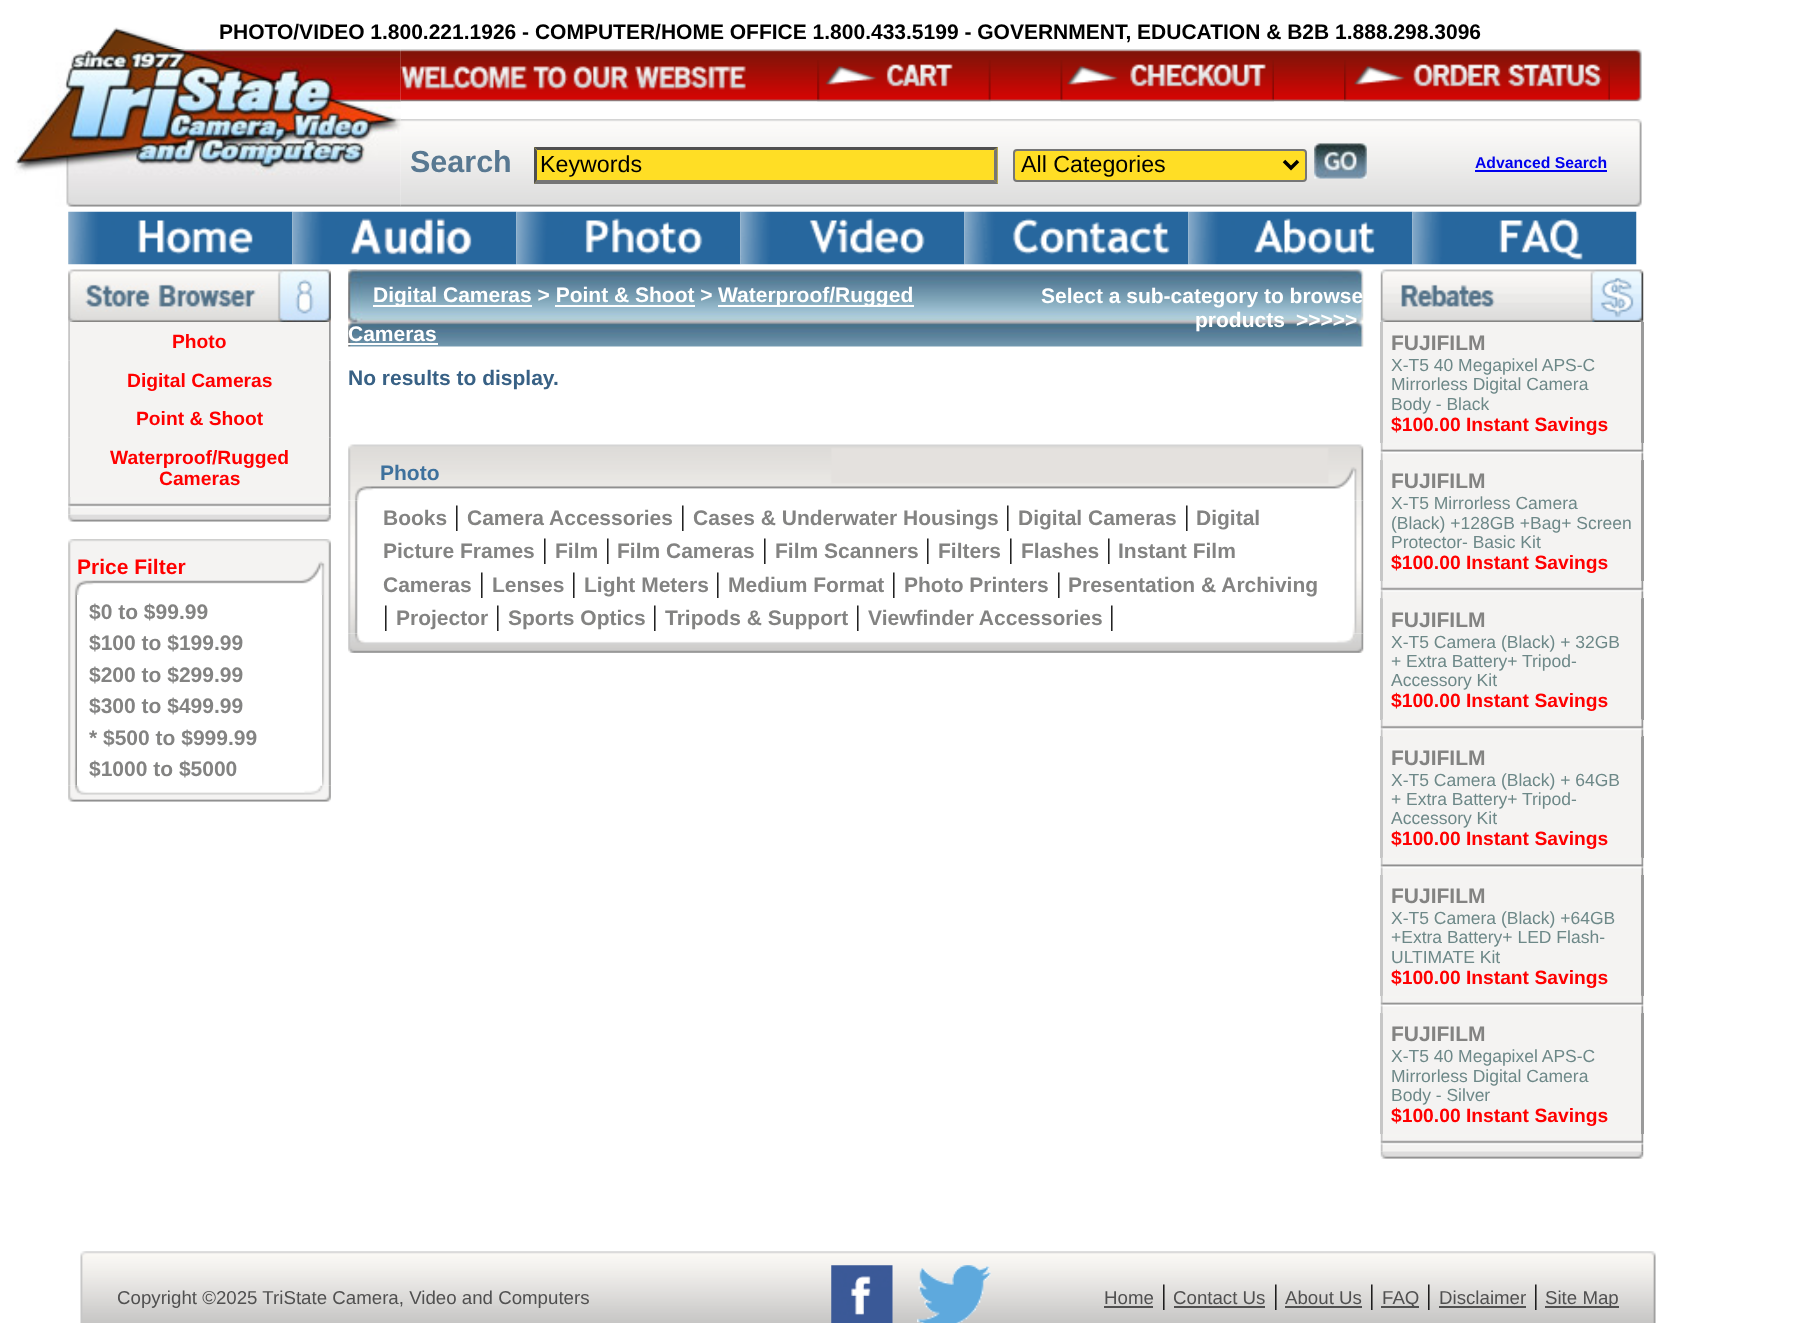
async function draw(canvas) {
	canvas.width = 1808;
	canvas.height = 1323;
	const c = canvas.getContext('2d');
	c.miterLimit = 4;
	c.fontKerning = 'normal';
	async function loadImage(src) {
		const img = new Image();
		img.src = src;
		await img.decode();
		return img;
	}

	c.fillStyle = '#fff';
	c.fillRect(0, 0, 1808, 1323);
	c.drawImage(await loadImage('img1.png'), 99, 27, 86, 22);
	c.font = 'bold 21px Liberation Sans';
	c.fillStyle = '#000';
	c.fillText('PHOTO/VIDEO 1.800.221.1926 - COMPUTER/HOME OFFICE 1.800.433.5199 - GOVERNMENT, EDUCATION & B2B 1.888.298.3096', 219, 39);
	c.drawImage(await loadImage('img2.png'), 14, 49, 387, 158);
	c.drawImage(await loadImage('img3.png'), 400, 49, 1242, 53);
	c.drawImage(await loadImage('img4.png'), 817, 60, 174, 42);
	c.drawImage(await loadImage('img5.png'), 1060, 60, 214, 42);
	c.drawImage(await loadImage('img6.png'), 1344, 60, 266, 42);
	c.drawImage(await loadImage('img7.png'), 400, 101, 1240, 1);
	c.drawImage(await loadImage('img8.png'), 400, 119, 1242, 88);
	c.font = 'bold 30.5px Liberation Sans';
	c.fillStyle = '#587891';
	c.fillText('Search', 410, 172);
	c.fillStyle = '#ffde25';
	c.fillRect(534, 147, 464, 37);
	c.fillStyle = '#4f4f4f';
	c.beginPath();
	c.moveTo(534, 147);
	c.lineTo(998, 147);
	c.lineTo(994, 150);
	c.lineTo(537, 150);
	c.closePath();
	c.fill();
	c.fillStyle = '#767676';
	c.beginPath();
	c.moveTo(997.5, 147);
	c.lineTo(997.5, 184);
	c.lineTo(994, 180);
	c.lineTo(994, 150.5);
	c.closePath();
	c.fill();
	c.beginPath();
	c.moveTo(998, 184);
	c.lineTo(534, 184);
	c.lineTo(537, 180);
	c.lineTo(994, 180);
	c.closePath();
	c.fill();
	c.fillStyle = '#4f4f4f';
	c.beginPath();
	c.moveTo(534, 184);
	c.lineTo(534, 147);
	c.lineTo(537, 150.5);
	c.lineTo(537, 180);
	c.closePath();
	c.fill();
	c.font = '23.25px Liberation Sans';
	c.fillStyle = '#000';
	c.fillText('Keywords', 540, 172);
	c.fillStyle = '#ffde25';
	c.beginPath();
	c.roundRect(1014, 150, 292, 31, 3);
	c.fill();
	c.strokeStyle = '#767676';
	c.lineWidth = 2;
	c.stroke();
	c.beginPath();
	c.moveTo(1284, 161);
	c.lineTo(1291, 168);
	c.lineTo(1298, 161);
	c.strokeStyle = '#000';
	c.lineWidth = 3.5;
	c.stroke();
	c.fillStyle = '#000';
	c.fillText('All Categories', 1021, 172);
	c.drawImage(await loadImage('img9.png'), 1314, 143, 53, 36);
	c.font = 'bold 15.75px Liberation Sans';
	c.fillStyle = '#00e';
	c.fillText('Advanced Search', 1475, 168);
	c.fillRect(1475, 170, 132, 2);
	c.drawImage(await loadImage('img10.png'), 68, 211, 225, 54);
	c.drawImage(await loadImage('img11.png'), 292, 211, 225, 54);
	c.drawImage(await loadImage('img12.png'), 516, 211, 225, 54);
	c.drawImage(await loadImage('img13.png'), 740, 211, 225, 54);
	c.drawImage(await loadImage('img14.png'), 964, 211, 225, 54);
	c.drawImage(await loadImage('img15.png'), 1188, 211, 225, 54);
	c.drawImage(await loadImage('img16.png'), 1412, 211, 225, 54);
	c.fillStyle = '#f4f3f2';
	c.fillRect(68, 270, 263, 227);
	c.drawImage(await loadImage('img17.png'), 68, 269, 263, 53);
	c.drawImage(await loadImage('img18.png'), 68, 322, 2, 39);
	c.font = 'bold 19.25px Liberation Sans';
	c.fillStyle = '#f00';
	c.fillText('Photo', 172, 348);
	c.drawImage(await loadImage('img19.png'), 329, 322, 2, 39);
	c.drawImage(await loadImage('img20.png'), 68, 360, 2, 39);
	c.fillText('Digital Cameras', 127, 387);
	c.drawImage(await loadImage('img21.png'), 329, 360, 2, 39);
	c.drawImage(await loadImage('img18.png'), 68, 399, 2, 39);
	c.fillText('Point & Shoot', 136, 425);
	c.drawImage(await loadImage('img19.png'), 329, 399, 2, 39);
	c.drawImage(await loadImage('img22.png'), 68, 437, 2, 60);
	c.fillText('Waterproof/Rugged', 110, 464);
	c.fillText('Cameras', 159, 485);
	c.drawImage(await loadImage('img23.png'), 329, 437, 2, 60);
	c.drawImage(await loadImage('img24.png'), 68, 497, 263, 18);
	c.drawImage(await loadImage('img25.png'), 68, 514, 263, 8);
	c.drawImage(await loadImage('img26.png'), 68, 539, 263, 56);
	c.font = 'bold 21px Liberation Sans';
	c.fillText('Price Filter', 77, 574);
	c.drawImage(await loadImage('img27.png'), 68, 595, 9, 191);
	c.fillStyle = '#838382';
	for (const [text, x, y] of [
		['$0 to $99.99', 89, 619],
		['$100 to $199.99', 89, 650],
		['$200 to $299.99', 89, 682],
		['$300 to $499.99', 89, 713],
		['* $500 to $999.99', 89, 745],
		['$1000 to $5000', 89, 776],
	]) {
		c.fillText(text, x, y);
	}
	c.drawImage(await loadImage('img28.png'), 322, 595, 9, 191);
	c.drawImage(await loadImage('img29.png'), 68, 785, 263, 17);
	c.drawImage(await loadImage('img30.png'), 348, 269, 1016, 78);
	c.fillStyle = '#fff';
	c.fillRect(373, 305, 159, 2);
	c.fillText('Digital Cameras > Point & Shoot >', 373, 302);
	c.fillRect(555, 305, 140, 2);
	c.fillRect(718, 305, 196, 2);
	c.fillText('Waterproof/Rugged', 718, 302);
	c.fillText('Cameras', 348, 341);
	c.fillRect(348, 343, 90, 2);
	for (const [text, x, y] of [
		['Select a sub-category to browse', 1041, 303],
		['products', 1195, 327],
		['>>>>>', 1296, 327],
	]) {
		c.fillText(text, x, y);
	}
	c.fillStyle = '#386185';
	c.fillText('No results to display.', 348, 385);
	c.drawImage(await loadImage('img31.png'), 348, 444, 1016, 57);
	c.fillStyle = '#3e719d';
	c.fillText('Photo', 380, 480);
	c.drawImage(await loadImage('img32.png'), 348, 500, 11, 134);
	c.fillStyle = '#838382';
	c.fillText('Books', 383, 525);
	c.font = '28px Liberation Serif';
	c.fillStyle = '#000';
	c.fillText('|', 454, 525);
	c.font = 'bold 21px Liberation Sans';
	c.fillStyle = '#838382';
	c.fillText('Camera Accessories', 467, 525);
	c.font = '28px Liberation Serif';
	c.fillStyle = '#000';
	c.fillText('|', 680, 525);
	c.font = 'bold 21px Liberation Sans';
	c.fillStyle = '#838382';
	c.fillText('Cases & Underwater Housings', 693, 525);
	c.font = '28px Liberation Serif';
	c.fillStyle = '#000';
	c.fillText('|', 1005, 525);
	c.font = 'bold 21px Liberation Sans';
	c.fillStyle = '#838382';
	c.fillText('Digital Cameras', 1018, 525);
	c.font = '28px Liberation Serif';
	c.fillStyle = '#000';
	c.fillText('|', 1184, 525);
	c.font = 'bold 21px Liberation Sans';
	c.fillStyle = '#838382';
	c.fillText('Digital', 1196, 525);
	c.fillText('Picture Frames', 383, 558);
	c.font = '28px Liberation Serif';
	c.fillStyle = '#000';
	c.fillText('|', 542, 558);
	c.font = 'bold 21px Liberation Sans';
	c.fillStyle = '#838382';
	c.fillText('Film', 555, 558);
	c.font = '28px Liberation Serif';
	c.fillStyle = '#000';
	c.fillText('|', 605, 558);
	c.font = 'bold 21px Liberation Sans';
	c.fillStyle = '#838382';
	c.fillText('Film Cameras', 617, 558);
	c.font = '28px Liberation Serif';
	c.fillStyle = '#000';
	c.fillText('|', 762, 558);
	c.font = 'bold 21px Liberation Sans';
	c.fillStyle = '#838382';
	c.fillText('Film Scanners', 775, 558);
	c.font = '28px Liberation Serif';
	c.fillStyle = '#000';
	c.fillText('|', 925, 558);
	c.font = 'bold 21px Liberation Sans';
	c.fillStyle = '#838382';
	c.fillText('Filters', 938, 558);
	c.font = '28px Liberation Serif';
	c.fillStyle = '#000';
	c.fillText('|', 1008, 558);
	c.font = 'bold 21px Liberation Sans';
	c.fillStyle = '#838382';
	c.fillText('Flashes', 1021, 558);
	c.font = '28px Liberation Serif';
	c.fillStyle = '#000';
	c.fillText('|', 1106, 558);
	c.font = 'bold 21px Liberation Sans';
	c.fillStyle = '#838382';
	c.fillText('Instant Film', 1118, 558);
	c.fillText('Cameras', 383, 592);
	c.font = '28px Liberation Serif';
	c.fillStyle = '#000';
	c.fillText('|', 479, 592);
	c.font = 'bold 21px Liberation Sans';
	c.fillStyle = '#838382';
	c.fillText('Lenses', 492, 592);
	c.font = '28px Liberation Serif';
	c.fillStyle = '#000';
	c.fillText('|', 571, 592);
	c.font = 'bold 21px Liberation Sans';
	c.fillStyle = '#838382';
	c.fillText('Light Meters', 584, 592);
	c.font = '28px Liberation Serif';
	c.fillStyle = '#000';
	c.fillText('|', 715, 592);
	c.font = 'bold 21px Liberation Sans';
	c.fillStyle = '#838382';
	c.fillText('Medium Format', 728, 592);
	c.font = '28px Liberation Serif';
	c.fillStyle = '#000';
	c.fillText('|', 891, 592);
	c.font = 'bold 21px Liberation Sans';
	c.fillStyle = '#838382';
	c.fillText('Photo Printers', 904, 592);
	c.font = '28px Liberation Serif';
	c.fillStyle = '#000';
	c.fillText('|', 1056, 592);
	c.font = 'bold 21px Liberation Sans';
	c.fillStyle = '#838382';
	c.fillText('Presentation & Archiving', 1068, 592);
	c.font = '28px Liberation Serif';
	c.fillStyle = '#000';
	c.fillText('|', 383, 625);
	c.font = 'bold 21px Liberation Sans';
	c.fillStyle = '#838382';
	c.fillText('Projector', 396, 625);
	c.font = '28px Liberation Serif';
	c.fillStyle = '#000';
	c.fillText('|', 495, 625);
	c.font = 'bold 21px Liberation Sans';
	c.fillStyle = '#838382';
	c.fillText('Sports Optics', 508, 625);
	c.font = '28px Liberation Serif';
	c.fillStyle = '#000';
	c.fillText('|', 652, 625);
	c.font = 'bold 21px Liberation Sans';
	c.fillStyle = '#838382';
	c.fillText('Tripods & Support', 665, 625);
	c.font = '28px Liberation Serif';
	c.fillStyle = '#000';
	c.fillText('|', 855, 625);
	c.font = 'bold 21px Liberation Sans';
	c.fillStyle = '#838382';
	c.fillText('Viewfinder Accessories', 868, 625);
	c.font = '28px Liberation Serif';
	c.fillStyle = '#000';
	c.fillText('|', 1109, 625);
	c.drawImage(await loadImage('img33.png'), 1352, 500, 12, 134);
	c.drawImage(await loadImage('img34.png'), 348, 633, 1016, 20);
	c.fillStyle = '#f4f3f2';
	c.fillRect(1381, 322, 262, 837);
	c.drawImage(await loadImage('img35.png'), 1380, 269, 264, 53);
	c.fillStyle = '#c6c6c6';
	c.fillRect(1380, 322, 3, 121);
	c.font = 'bold 21px Liberation Sans';
	c.fillStyle = '#838382';
	c.fillText('FUJIFILM', 1391, 350);
	c.font = '17.5px Liberation Sans';
	c.fillStyle = '#6d8888';
	for (const [text, x, y] of [
		['X-T5 40 Megapixel APS-C', 1391, 371],
		['Mirrorless Digital Camera', 1391, 390],
		['Body - Black', 1391, 410],
	]) {
		c.fillText(text, x, y);
	}
	c.font = 'bold 19.25px Liberation Sans';
	c.fillStyle = '#f00';
	c.fillText('$100.00 Instant Savings', 1391, 431);
	for (const [x, y, w, h, color] of [
		[1641, 322, 3, 121, '#9a9a9a'],
		[1380, 460, 3, 121, '#c6c6c6'],
		[1641, 460, 3, 121, '#9a9a9a'],
	]) {
		c.fillStyle = color;
		c.fillRect(x, y, w, h);
	}
	c.drawImage(await loadImage('img36.png'), 1380, 442, 264, 19);
	c.font = 'bold 21px Liberation Sans';
	c.fillStyle = '#838382';
	c.fillText('FUJIFILM', 1391, 488);
	c.font = '17.5px Liberation Sans';
	c.fillStyle = '#6d8888';
	for (const [text, x, y] of [
		['X-T5 Mirrorless Camera', 1391, 509],
		['(Black) +128GB +Bag+ Screen', 1391, 529],
		['Protector- Basic Kit', 1391, 548],
	]) {
		c.fillText(text, x, y);
	}
	c.font = 'bold 19.25px Liberation Sans';
	c.fillStyle = '#f00';
	c.fillText('$100.00 Instant Savings', 1391, 569);
	c.fillStyle = '#c6c6c6';
	c.fillRect(1380, 598, 3, 122);
	c.fillStyle = '#9a9a9a';
	c.fillRect(1641, 598, 3, 122);
	c.drawImage(await loadImage('img37.png'), 1380, 581, 264, 18);
	c.font = 'bold 21px Liberation Sans';
	c.fillStyle = '#838382';
	c.fillText('FUJIFILM', 1391, 627);
	c.font = '17.5px Liberation Sans';
	c.fillStyle = '#6d8888';
	for (const [text, x, y] of [
		['X-T5 Camera (Black) + 32GB', 1391, 648],
		['+ Extra Battery+ Tripod-', 1391, 667],
		['Accessory Kit', 1391, 686],
	]) {
		c.fillText(text, x, y);
	}
	c.font = 'bold 19.25px Liberation Sans';
	c.fillStyle = '#f00';
	c.fillText('$100.00 Instant Savings', 1391, 707);
	c.fillStyle = '#c6c6c6';
	c.fillRect(1380, 736, 3, 122);
	c.fillStyle = '#9a9a9a';
	c.fillRect(1641, 736, 3, 122);
	c.drawImage(await loadImage('img38.png'), 1380, 719, 264, 18);
	c.font = 'bold 21px Liberation Sans';
	c.fillStyle = '#838382';
	c.fillText('FUJIFILM', 1391, 765);
	c.font = '17.5px Liberation Sans';
	c.fillStyle = '#6d8888';
	for (const [text, x, y] of [
		['X-T5 Camera (Black) + 64GB', 1391, 786],
		['+ Extra Battery+ Tripod-', 1391, 805],
		['Accessory Kit', 1391, 824],
	]) {
		c.fillText(text, x, y);
	}
	c.font = 'bold 19.25px Liberation Sans';
	c.fillStyle = '#f00';
	c.fillText('$100.00 Instant Savings', 1391, 845);
	c.drawImage(await loadImage('img39.png'), 1380, 857, 264, 18);
	c.fillStyle = '#c6c6c6';
	c.fillRect(1380, 875, 3, 121);
	c.font = 'bold 21px Liberation Sans';
	c.fillStyle = '#838382';
	c.fillText('FUJIFILM', 1391, 903);
	c.font = '17.5px Liberation Sans';
	c.fillStyle = '#6d8888';
	for (const [text, x, y] of [
		['X-T5 Camera (Black) +64GB', 1391, 924],
		['+Extra Battery+ LED Flash-', 1391, 943],
		['ULTIMATE Kit', 1391, 963],
	]) {
		c.fillText(text, x, y);
	}
	c.font = 'bold 19.25px Liberation Sans';
	c.fillStyle = '#f00';
	c.fillText('$100.00 Instant Savings', 1391, 984);
	for (const [x, y, w, h, color] of [
		[1641, 875, 3, 121, '#9a9a9a'],
		[1380, 1013, 3, 121, '#c6c6c6'],
		[1641, 1013, 3, 121, '#9a9a9a'],
	]) {
		c.fillStyle = color;
		c.fillRect(x, y, w, h);
	}
	c.drawImage(await loadImage('img36.png'), 1380, 995, 264, 19);
	c.font = 'bold 21px Liberation Sans';
	c.fillStyle = '#838382';
	c.fillText('FUJIFILM', 1391, 1041);
	c.font = '17.5px Liberation Sans';
	c.fillStyle = '#6d8888';
	for (const [text, x, y] of [
		['X-T5 40 Megapixel APS-C', 1391, 1062],
		['Mirrorless Digital Camera', 1391, 1082],
		['Body - Silver', 1391, 1101],
	]) {
		c.fillText(text, x, y);
	}
	c.font = 'bold 19.25px Liberation Sans';
	c.fillStyle = '#f00';
	c.fillText('$100.00 Instant Savings', 1391, 1122);
	c.drawImage(await loadImage('img40.png'), 1380, 1134, 264, 18);
	c.drawImage(await loadImage('img41.png'), 1380, 1151, 264, 8);
	c.drawImage(await loadImage('img42.png'), 80, 1251, 1576, 72);
	c.font = '18.7px Liberation Sans';
	c.fillStyle = '#505050';
	c.fillText('Copyright ©2025 TriState Camera, Video and Computers', 117, 1304);
	c.drawImage(await loadImage('img43.png'), 831, 1265, 62, 58);
	c.drawImage(await loadImage('img44.png'), 917, 1265, 74, 58);
	c.fillText('Home', 1104, 1304);
	c.fillRect(1104, 1306, 49, 2);
	c.font = '28px Liberation Serif';
	c.fillStyle = '#000';
	c.fillText('|', 1161, 1304);
	c.font = '18.7px Liberation Sans';
	c.fillStyle = '#505050';
	c.fillText('Contact Us', 1173, 1304);
	c.fillRect(1174, 1306, 91, 2);
	c.font = '28px Liberation Serif';
	c.fillStyle = '#000';
	c.fillText('|', 1273, 1304);
	c.font = '18.7px Liberation Sans';
	c.fillStyle = '#505050';
	c.fillText('About Us', 1285, 1304);
	c.fillRect(1285, 1306, 77, 2);
	c.font = '28px Liberation Serif';
	c.fillStyle = '#000';
	c.fillText('|', 1369, 1304);
	c.fillStyle = '#505050';
	c.fillRect(1381, 1306, 38, 2);
	c.font = '18.7px Liberation Sans';
	c.fillText('FAQ', 1382, 1304);
	c.font = '28px Liberation Serif';
	c.fillStyle = '#000';
	c.fillText('|', 1426, 1304);
	c.font = '18.7px Liberation Sans';
	c.fillStyle = '#505050';
	c.fillText('Disclaimer', 1439, 1304);
	c.fillRect(1439, 1306, 87, 2);
	c.font = '28px Liberation Serif';
	c.fillStyle = '#000';
	c.fillText('|', 1533, 1304);
	c.fillStyle = '#505050';
	c.fillRect(1545, 1306, 74, 2);
	c.font = '18.7px Liberation Sans';
	c.fillText('Site Map', 1545, 1304);
}

draw(document.querySelector('canvas'));
